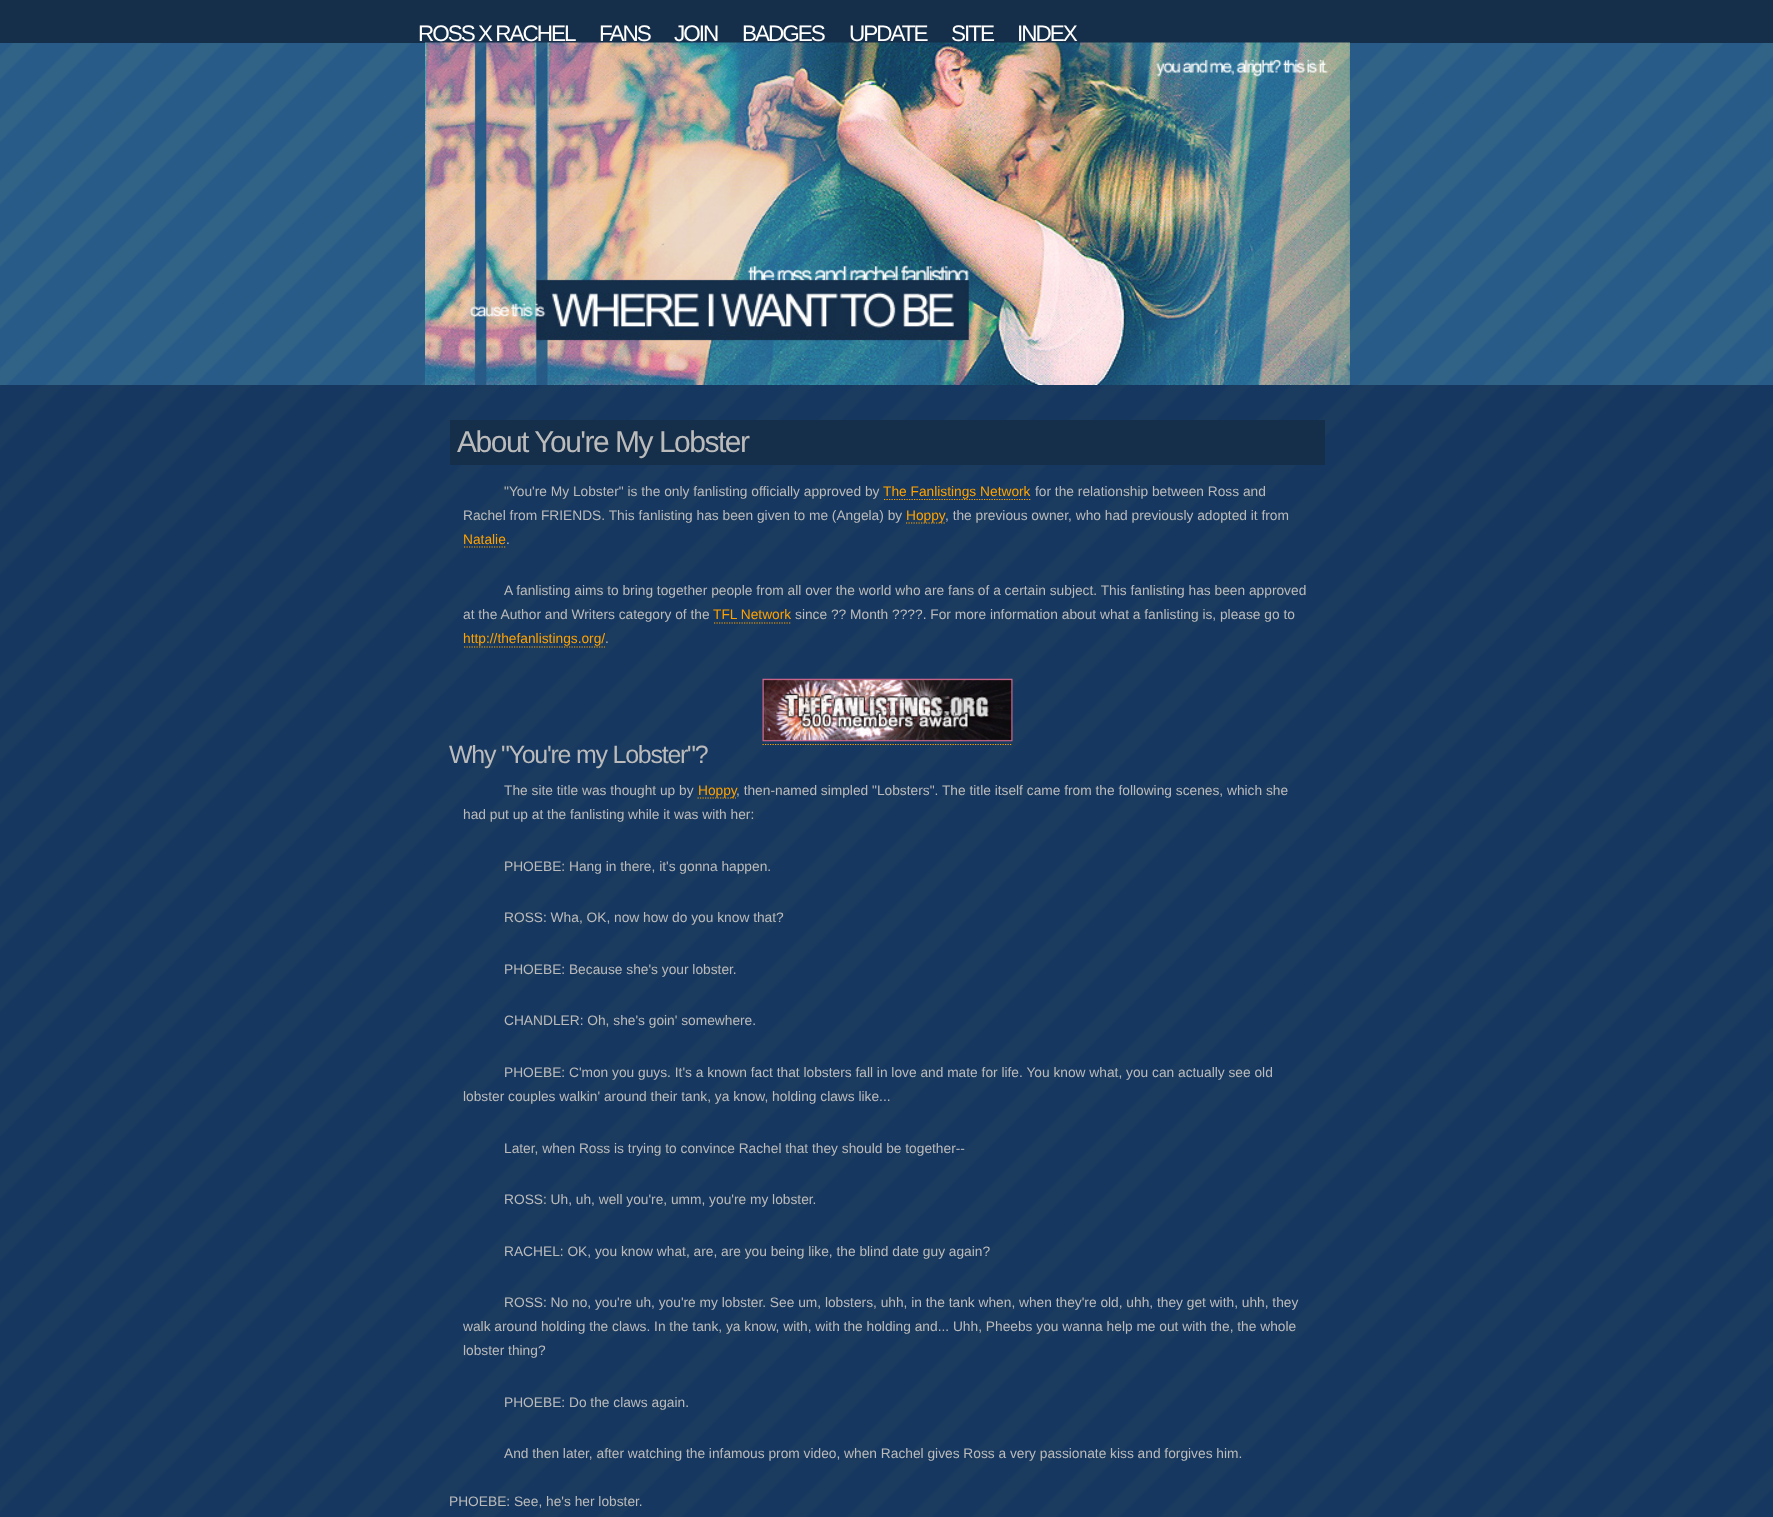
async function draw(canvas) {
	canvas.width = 1773;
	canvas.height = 1517;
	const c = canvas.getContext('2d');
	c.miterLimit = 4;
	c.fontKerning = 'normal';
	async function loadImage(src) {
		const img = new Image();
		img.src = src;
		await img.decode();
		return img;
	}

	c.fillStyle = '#fff';
	c.fillRect(0, 0, 1773, 1517);
	c.drawImage(await loadImage('img1.png'), 0, 385, 1773, 1132);
	c.drawImage(await loadImage('img2.png'), 0, 43, 1773, 342);
	c.fillStyle = '#152e49';
	c.fillRect(0, 0, 1773, 43);
	c.letterSpacing = '-2px';
	c.font = '22.5px Liberation Sans';
	c.fillStyle = '#fff';
	for (const [text, x, y] of [
		['ROSS X RACHEL', 418, 41],
		['FANS', 599, 41],
		['JOIN', 674, 41],
		['BADGES', 742, 41],
		['UPDATE', 849, 41],
		['SITE', 951, 41],
		['INDEX', 1017, 41],
	]) {
		c.fillText(text, x, y);
	}
	c.drawImage(await loadImage('img3.png'), 425, 42, 925, 343);
	c.fillStyle = '#152e49';
	c.fillRect(450, 420, 875, 45);
	c.letterSpacing = '-1.5px';
	c.font = '30px Liberation Sans';
	c.fillStyle = '#bbb';
	c.fillText('About You\'re My Lobster', 457, 452);
	c.letterSpacing = '0px';
	c.font = '13.75px Liberation Sans';
	c.fillText('"You\'re My Lobster" is the only fanlisting officially approved by', 504, 496);
	c.beginPath();
	c.moveTo(884, 499.5);
	c.lineTo(1031, 499.5);
	c.strokeStyle = '#ffa200';
	c.lineWidth = 1.2;
	c.setLineDash([1.25, 1.25]);
	c.stroke();
	c.fillStyle = '#ffa200';
	c.fillText('The Fanlistings Network', 883, 496);
	c.fillStyle = '#bbb';
	c.fillText('for the relationship between Ross and', 1035, 496);
	c.fillText('Rachel from FRIENDS. This fanlisting has been given to me (Angela) by', 463, 520);
	c.beginPath();
	c.moveTo(906, 523);
	c.lineTo(945, 523);
	c.stroke();
	c.fillStyle = '#ffa200';
	c.fillText('Hoppy', 906, 520);
	c.fillStyle = '#bbb';
	c.fillText(', the previous owner, who had previously adopted it from', 945, 520);
	c.fillStyle = '#ffa200';
	c.fillText('Natalie', 463, 544);
	c.beginPath();
	c.moveTo(464, 547);
	c.lineTo(506, 547);
	c.stroke();
	c.fillStyle = '#bbb';
	for (const [text, x, y] of [
		['.', 506, 544],
		['A fanlisting aims to bring together people from all over the world who are fans of a certain subject. This fanlisting has been approved', 504, 595],
		['at the Author and Writers category of the', 463, 619],
	]) {
		c.fillText(text, x, y);
	}
	c.fillStyle = '#ffa200';
	c.fillText('TFL Network', 713, 619);
	c.beginPath();
	c.moveTo(714, 623);
	c.lineTo(791, 623);
	c.stroke();
	c.fillStyle = '#bbb';
	c.fillText('since ?? Month ????. For more information about what a fanlisting is, please go to', 795, 619);
	c.fillStyle = '#ffa200';
	c.fillText('http://thefanlistings.org/', 463, 643);
	c.beginPath();
	c.moveTo(464, 647);
	c.lineTo(605, 647);
	c.stroke();
	c.fillStyle = '#bbb';
	c.fillText('.', 605, 643);
	c.drawImage(await loadImage('img4.png'), 762, 678, 251, 64);
	c.beginPath();
	c.moveTo(762.5, 744.5);
	c.lineTo(1012.5, 744.5);
	c.stroke();
	c.letterSpacing = '-1.25px';
	c.font = '25px Liberation Sans';
	c.fillText('Why "You\'re my Lobster"?', 449, 763);
	c.letterSpacing = '0px';
	c.font = '13.75px Liberation Sans';
	c.fillText('The site title was thought up by', 504, 795);
	c.beginPath();
	c.moveTo(697.5, 798);
	c.lineTo(736, 798);
	c.stroke();
	c.fillStyle = '#ffa200';
	c.fillText('Hoppy', 698, 795);
	c.fillStyle = '#bbb';
	for (const [text, x, y] of [
		[', then-named simpled "Lobsters". The title itself came from the following scenes, which she', 736, 795],
		['had put up at the fanlisting while it was with her:', 463, 819],
		['PHOEBE: Hang in there, it\'s gonna happen.', 504, 871],
		['ROSS: Wha, OK, now how do you know that?', 504, 922],
		['PHOEBE: Because she\'s your lobster.', 504, 974],
		['CHANDLER: Oh, she\'s goin\' somewhere.', 504, 1025],
		['PHOEBE: C\'mon you guys. It\'s a known fact that lobsters fall in love and mate for life. You know what, you can actually see old', 504, 1077],
		['lobster couples walkin\' around their tank, ya know, holding claws like...', 463, 1101],
		['Later, when Ross is trying to convince Rachel that they should be together--', 504, 1153],
		['ROSS: Uh, uh, well you\'re, umm, you\'re my lobster.', 504, 1204],
		['RACHEL: OK, you know what, are, are you being like, the blind date guy again?', 504, 1256],
		['ROSS: No no, you\'re uh, you\'re my lobster. See um, lobsters, uhh, in the tank when, when they\'re old, uhh, they get with, uhh, they', 504, 1307],
		['walk around holding the claws. In the tank, ya know, with, with the holding and... Uhh, Pheebs you wanna help me out with the, the whole', 463, 1331],
		['lobster thing?', 463, 1355],
		['PHOEBE: Do the claws again.', 504, 1407],
		['And then later, after watching the infamous prom video, when Rachel gives Ross a very passionate kiss and forgives him.', 504, 1458],
		['PHOEBE: See, he\'s her lobster.', 449, 1506],
	]) {
		c.fillText(text, x, y);
	}
}

draw(document.querySelector('canvas'));
